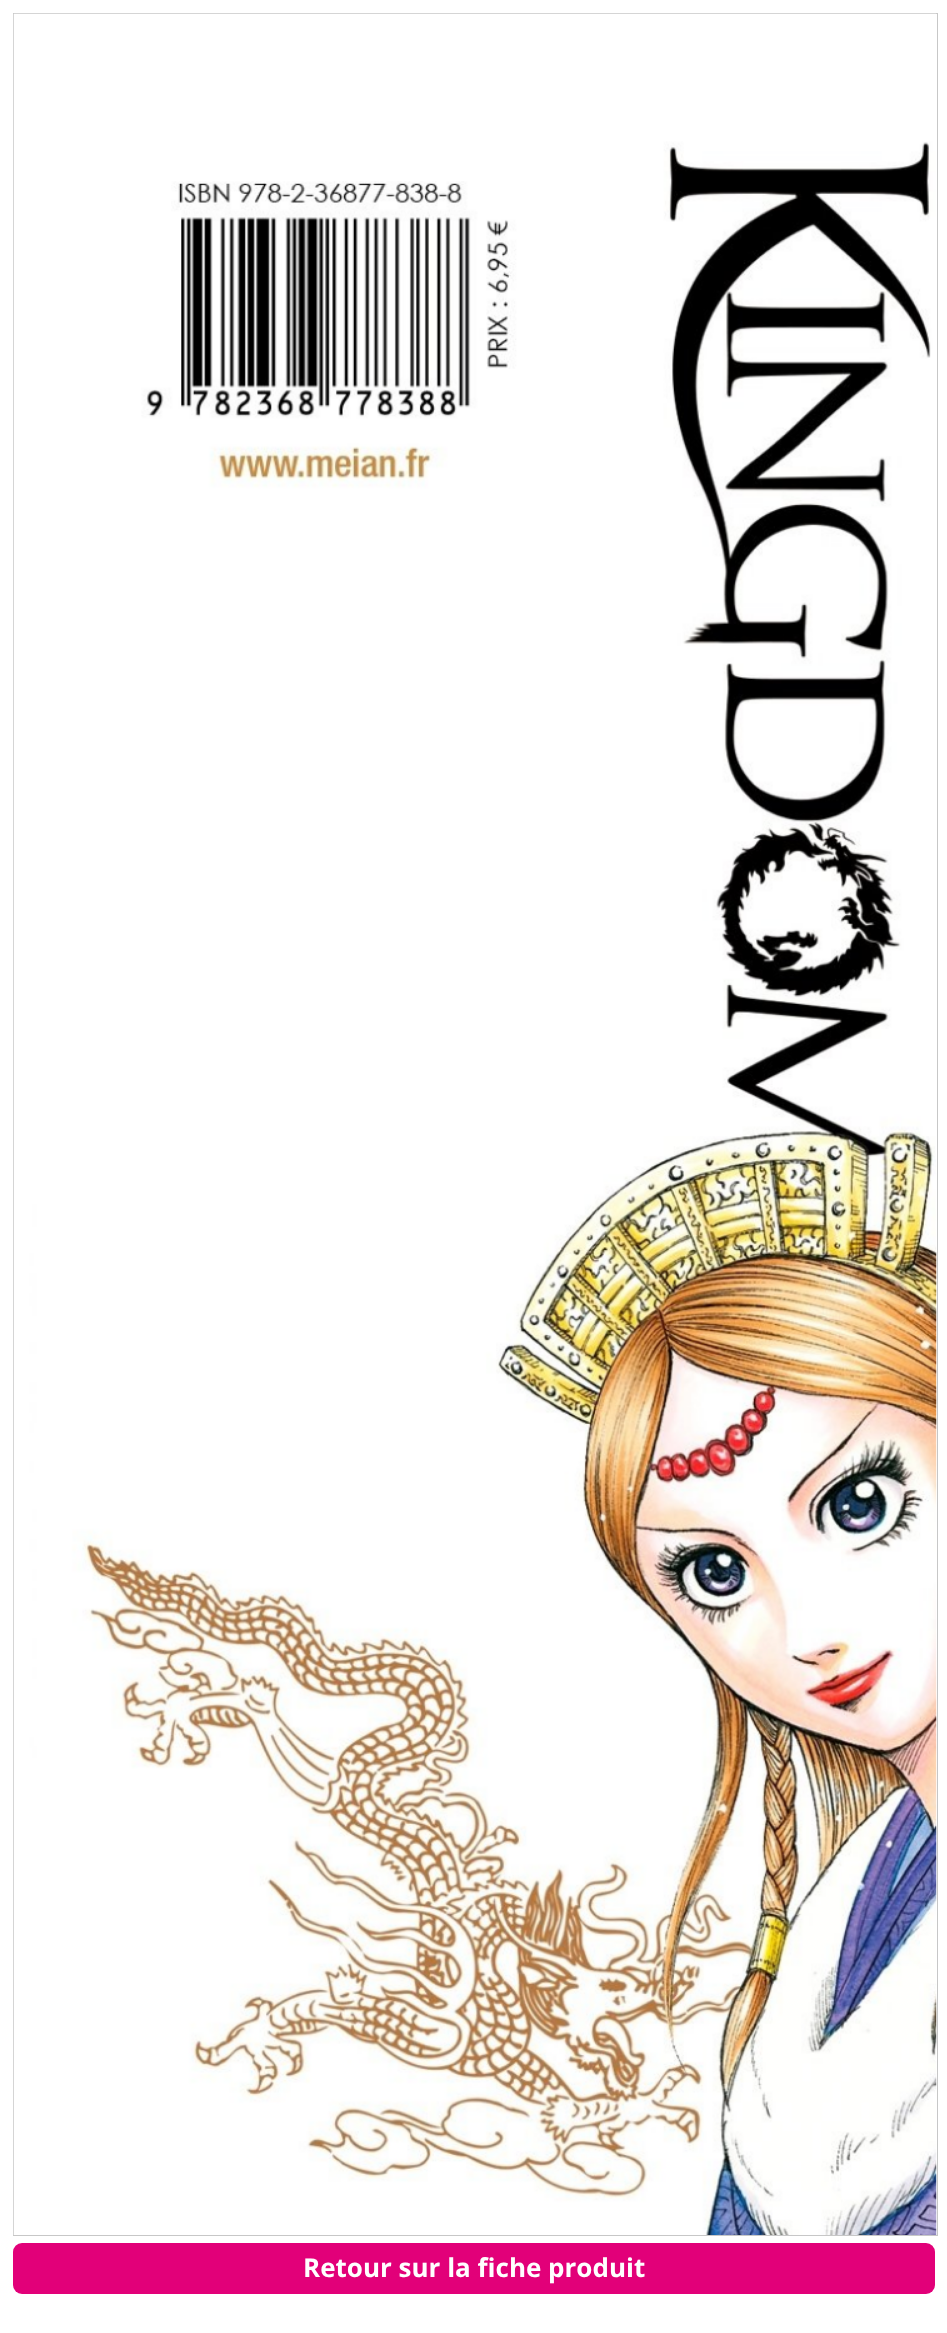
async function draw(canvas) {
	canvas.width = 947;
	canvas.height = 2333;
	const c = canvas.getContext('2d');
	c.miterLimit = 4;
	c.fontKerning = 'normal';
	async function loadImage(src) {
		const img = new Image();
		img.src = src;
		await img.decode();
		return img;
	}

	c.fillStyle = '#fff';
	c.fillRect(0, 0, 947, 2333);
	c.strokeStyle = '#c7c7c7';
	c.strokeRect(13.5, 13.5, 924, 2222);
	c.drawImage(await loadImage('img1.png'), 13, 13, 924, 2222);
	c.fillStyle = '#e20079';
	c.beginPath();
	c.roundRect(13, 2243, 922, 51, 9);
	c.fill();
	c.font = 'bold 26px Open Sans';
	c.fillStyle = '#fff';
	c.fillText('Retour sur la fiche produit', 303, 2277);
}

draw(document.querySelector('canvas'));
